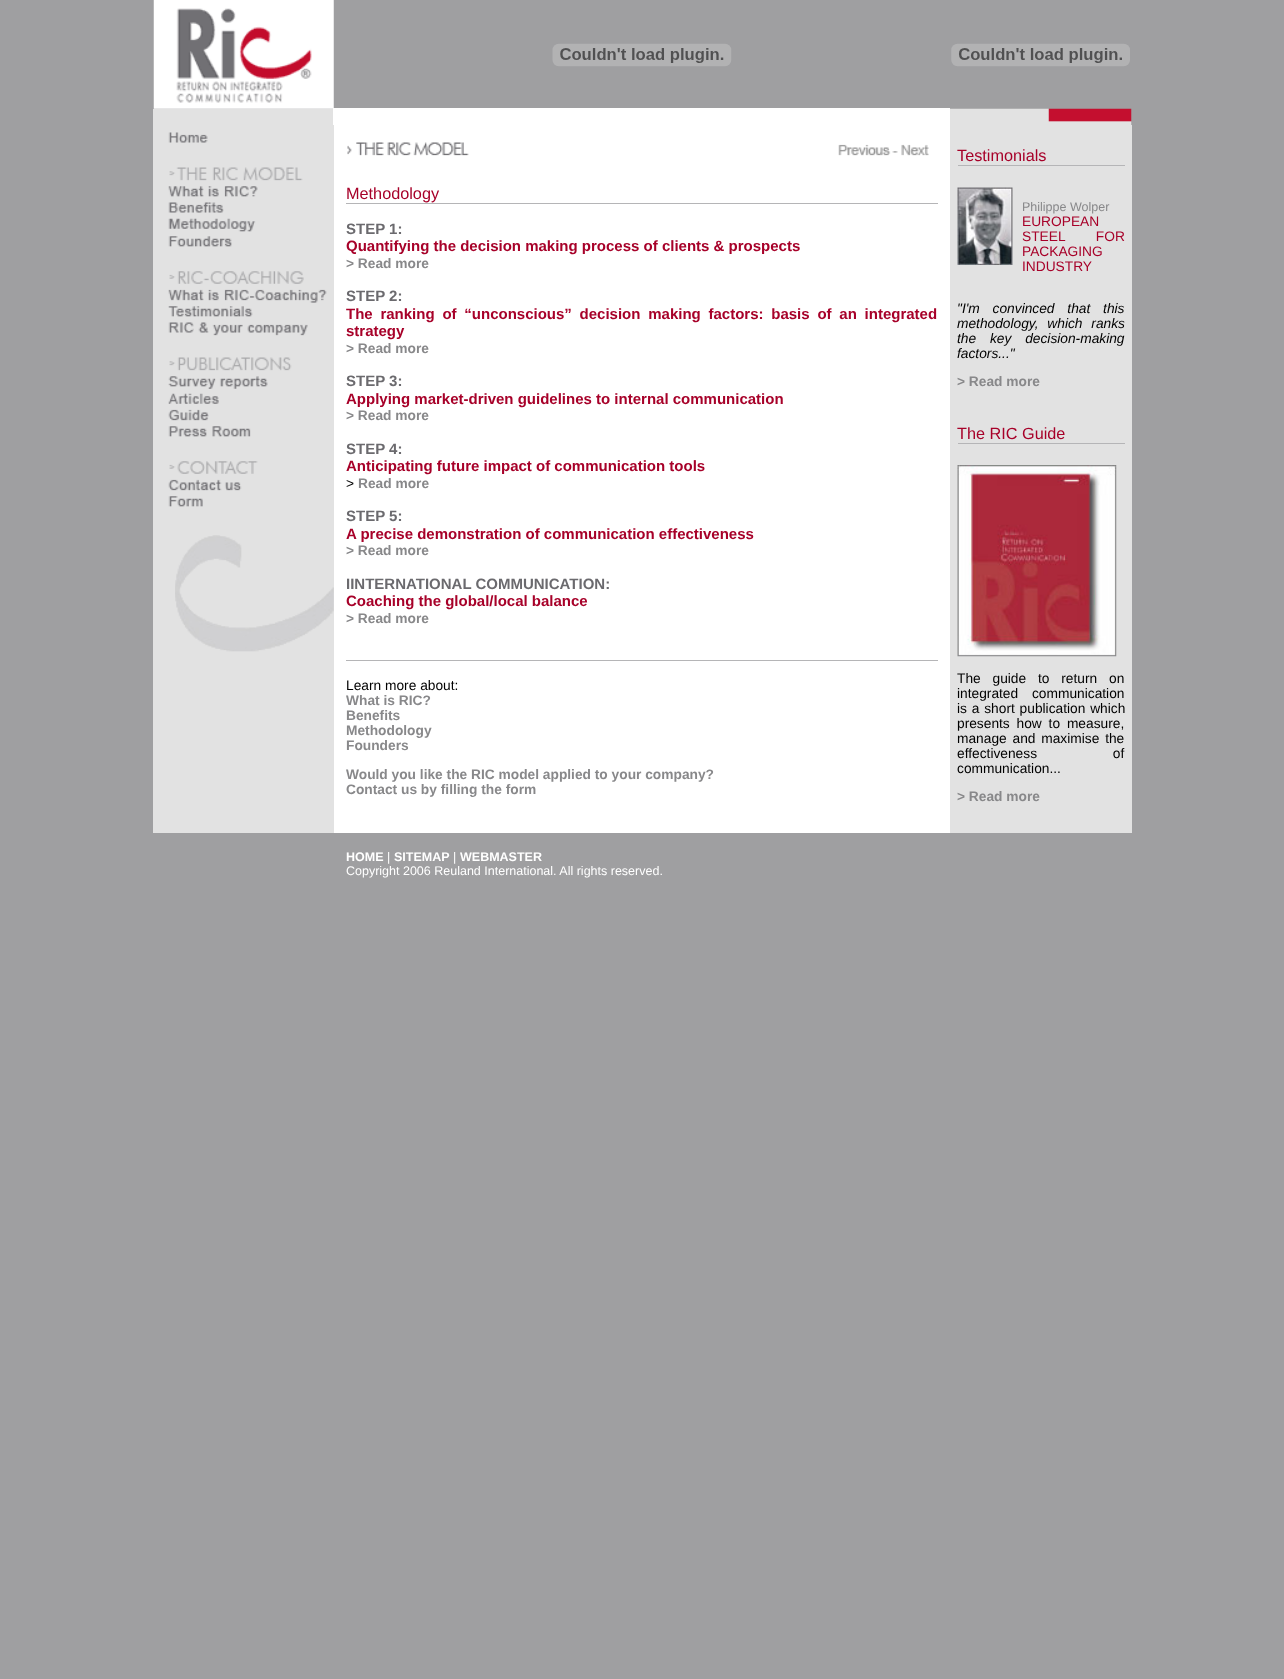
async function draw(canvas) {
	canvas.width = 1284;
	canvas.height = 1679;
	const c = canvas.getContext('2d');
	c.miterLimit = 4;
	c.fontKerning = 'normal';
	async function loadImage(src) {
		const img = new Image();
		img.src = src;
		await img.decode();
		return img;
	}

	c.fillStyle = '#9f9fa1';
	c.fillRect(0, 0, 1284, 1679);
	c.drawImage(await loadImage('img1.png'), 153, 0, 181, 109);
	c.drawImage(await loadImage('img2.png'), 552, 43, 180, 24);
	c.drawImage(await loadImage('img3.png'), 951, 43, 179, 24);
	c.fillStyle = '#e2e2e2';
	c.fillRect(153, 109, 180, 16);
	c.fillStyle = '#fff';
	c.fillRect(333, 108, 617, 17);
	c.drawImage(await loadImage('img4.png'), 950, 108, 182, 17);
	c.fillStyle = '#e2e2e2';
	c.fillRect(153, 125, 181, 708);
	c.drawImage(await loadImage('img5.png'), 168, 132, 40, 11);
	c.drawImage(await loadImage('img6.png'), 169, 167, 134, 14);
	c.drawImage(await loadImage('img7.png'), 168, 186, 90, 11);
	c.drawImage(await loadImage('img8.png'), 168, 202, 56, 11);
	c.drawImage(await loadImage('img9.png'), 168, 218, 88, 14);
	c.drawImage(await loadImage('img10.png'), 168, 236, 64, 11);
	c.drawImage(await loadImage('img11.png'), 169, 271, 135, 13);
	c.drawImage(await loadImage('img12.png'), 168, 289, 159, 14);
	c.drawImage(await loadImage('img13.png'), 168, 306, 85, 11);
	c.drawImage(await loadImage('img14.png'), 168, 322, 140, 14);
	c.drawImage(await loadImage('img15.png'), 169, 357, 123, 14);
	c.drawImage(await loadImage('img16.png'), 168, 376, 100, 13);
	c.drawImage(await loadImage('img17.png'), 168, 393, 51, 11);
	c.drawImage(await loadImage('img18.png'), 168, 409, 41, 12);
	c.drawImage(await loadImage('img19.png'), 168, 426, 83, 11);
	c.drawImage(await loadImage('img20.png'), 169, 461, 89, 13);
	c.drawImage(await loadImage('img21.png'), 168, 479, 74, 12);
	c.drawImage(await loadImage('img22.png'), 168, 496, 35, 11);
	c.drawImage(await loadImage('img23.png'), 175, 535, 159, 117);
	c.fillStyle = '#fff';
	c.fillRect(334, 125, 616, 708);
	c.drawImage(await loadImage('img24.png'), 347, 142, 122, 14);
	c.drawImage(await loadImage('img25.png'), 838, 144, 53, 12);
	c.drawImage(await loadImage('img26.png'), 892, 151, 6, 2);
	c.drawImage(await loadImage('img27.png'), 901, 144, 28, 12);
	c.fillStyle = '#b5b5b7';
	c.fillRect(346, 203, 592, 1);
	c.font = '16.25px Liberation Sans';
	c.fillStyle = '#a70129';
	c.fillText('Methodology', 346, 199);
	c.font = 'bold 15px Liberation Sans';
	c.fillStyle = '#6b6a6e';
	c.fillText('STEP 1:', 346, 234);
	c.fillStyle = '#a70129';
	c.fillText('Quantifying the decision making process of clients & prospects', 346, 251);
	c.font = 'bold 13.75px Liberation Sans';
	c.fillStyle = '#88888a';
	c.fillText('> Read more', 346, 268);
	c.font = 'bold 15px Liberation Sans';
	c.fillStyle = '#6b6a6e';
	c.fillText('STEP 2:', 346, 301);
	c.wordSpacing = '3.6px';
	c.fillStyle = '#a70129';
	c.fillText('The ranking of “unconscious” decision making factors: basis of an integrated', 346, 319);
	c.wordSpacing = '0px';
	c.fillText('strategy', 346, 336);
	c.font = 'bold 13.75px Liberation Sans';
	c.fillStyle = '#88888a';
	c.fillText('> Read more', 346, 353);
	c.font = 'bold 15px Liberation Sans';
	c.fillStyle = '#6b6a6e';
	c.fillText('STEP 3:', 346, 386);
	c.fillStyle = '#a70129';
	c.fillText('Applying market-driven guidelines to internal communication', 346, 404);
	c.font = 'bold 13.75px Liberation Sans';
	c.fillStyle = '#88888a';
	c.fillText('> Read more', 346, 420);
	c.font = 'bold 15px Liberation Sans';
	c.fillStyle = '#6b6a6e';
	c.fillText('STEP 4:', 346, 454);
	c.fillStyle = '#a70129';
	c.fillText('Anticipating future impact of communication tools', 346, 471);
	c.font = '13.75px Liberation Sans';
	c.fillStyle = '#000';
	c.fillText('>', 346, 488);
	c.font = 'bold 13.75px Liberation Sans';
	c.fillStyle = '#88888a';
	c.fillText('Read more', 358, 488);
	c.font = 'bold 15px Liberation Sans';
	c.fillStyle = '#6b6a6e';
	c.fillText('STEP 5:', 346, 521);
	c.fillStyle = '#a70129';
	c.fillText('A precise demonstration of communication effectiveness', 346, 539);
	c.font = 'bold 13.75px Liberation Sans';
	c.fillStyle = '#88888a';
	c.fillText('> Read more', 346, 555);
	c.font = 'bold 15px Liberation Sans';
	c.fillStyle = '#6b6a6e';
	c.fillText('IINTERNATIONAL COMMUNICATION:', 346, 589);
	c.fillStyle = '#a70129';
	c.fillText('Coaching the global/local balance', 346, 606);
	c.font = 'bold 13.75px Liberation Sans';
	c.fillStyle = '#88888a';
	c.fillText('> Read more', 346, 623);
	c.fillStyle = '#b5b5b7';
	c.fillRect(346, 660, 592, 1);
	c.font = '13.75px Liberation Sans';
	c.fillStyle = '#000';
	c.fillText('Learn more about:', 346, 690);
	c.font = 'bold 13.75px Liberation Sans';
	c.fillStyle = '#88888a';
	for (const [text, x, y] of [
		['What is RIC?', 346, 705],
		['Benefits', 346, 720],
		['Methodology', 346, 735],
		['Founders', 346, 750],
		['Would you like the RIC model applied to your company?', 346, 779],
		['Contact us by filling the form', 346, 794],
	]) {
		c.fillText(text, x, y);
	}
	c.fillStyle = '#e2e2e2';
	c.fillRect(950, 125, 182, 708);
	c.fillStyle = '#b5b5b7';
	c.fillRect(958, 165, 167, 1);
	c.font = '16.25px Liberation Sans';
	c.fillStyle = '#a70129';
	c.fillText('Testimonials', 957, 161);
	c.drawImage(await loadImage('img28.png'), 957, 187, 56, 78);
	c.font = '12.5px Liberation Sans';
	c.fillStyle = '#88888a';
	c.fillText('Philippe Wolper', 1022, 211);
	c.font = '13.75px Liberation Sans';
	c.fillStyle = '#a70129';
	c.fillText('EUROPEAN', 1022, 226);
	c.wordSpacing = '27px';
	c.fillText('STEEL FOR', 1022, 241);
	c.wordSpacing = '0px';
	c.fillText('PACKAGING', 1022, 256);
	c.fillText('INDUSTRY', 1022, 271);
	c.wordSpacing = '9px';
	c.font = 'italic 13.75px Liberation Sans';
	c.fillStyle = '#000';
	c.fillText('"I\'m convinced that this', 957, 313);
	c.wordSpacing = '5px';
	c.fillText('methodology, which ranks', 957, 328);
	c.wordSpacing = '10px';
	c.fillText('the key decision-making', 957, 343);
	c.wordSpacing = '0px';
	c.fillText('factors..."', 957, 358);
	c.font = 'bold 13.75px Liberation Sans';
	c.fillStyle = '#88888a';
	c.fillText('> Read more', 957, 386);
	c.fillStyle = '#b5b5b7';
	c.fillRect(958, 443, 167, 1);
	c.font = '16.25px Liberation Sans';
	c.fillStyle = '#a70129';
	c.fillText('The RIC Guide', 957, 439);
	c.drawImage(await loadImage('img29.png'), 957, 465, 160, 192);
	c.wordSpacing = '8px';
	c.font = '13.75px Liberation Sans';
	c.fillStyle = '#000';
	c.fillText('The guide to return on', 957, 683);
	c.wordSpacing = '10px';
	c.fillText('integrated communication', 957, 698);
	c.wordSpacing = '1px';
	c.fillText('is a short publication which', 957, 713);
	c.wordSpacing = '3px';
	c.fillText('presents how to measure,', 957, 728);
	c.wordSpacing = '2px';
	c.fillText('manage and maximise the', 957, 743);
	c.wordSpacing = '72px';
	c.fillText('effectiveness of', 957, 758);
	c.wordSpacing = '0px';
	c.fillText('communication...', 957, 773);
	c.font = 'bold 13.75px Liberation Sans';
	c.fillStyle = '#88888a';
	c.fillText('> Read more', 957, 801);
	c.font = 'bold 12.5px Liberation Sans';
	c.fillStyle = '#fff';
	c.fillText('HOME', 346, 861);
	c.font = '12.5px Liberation Sans';
	c.fillText('|', 387, 861);
	c.font = 'bold 12.5px Liberation Sans';
	c.fillText('SITEMAP', 394, 861);
	c.font = '12.5px Liberation Sans';
	c.fillText('|', 453, 861);
	c.font = 'bold 12.5px Liberation Sans';
	c.fillText('WEBMASTER', 460, 861);
	c.font = '12.5px Liberation Sans';
	c.fillText('Copyright 2006 Reuland International. All rights reserved.', 346, 875);
}

draw(document.querySelector('canvas'));
